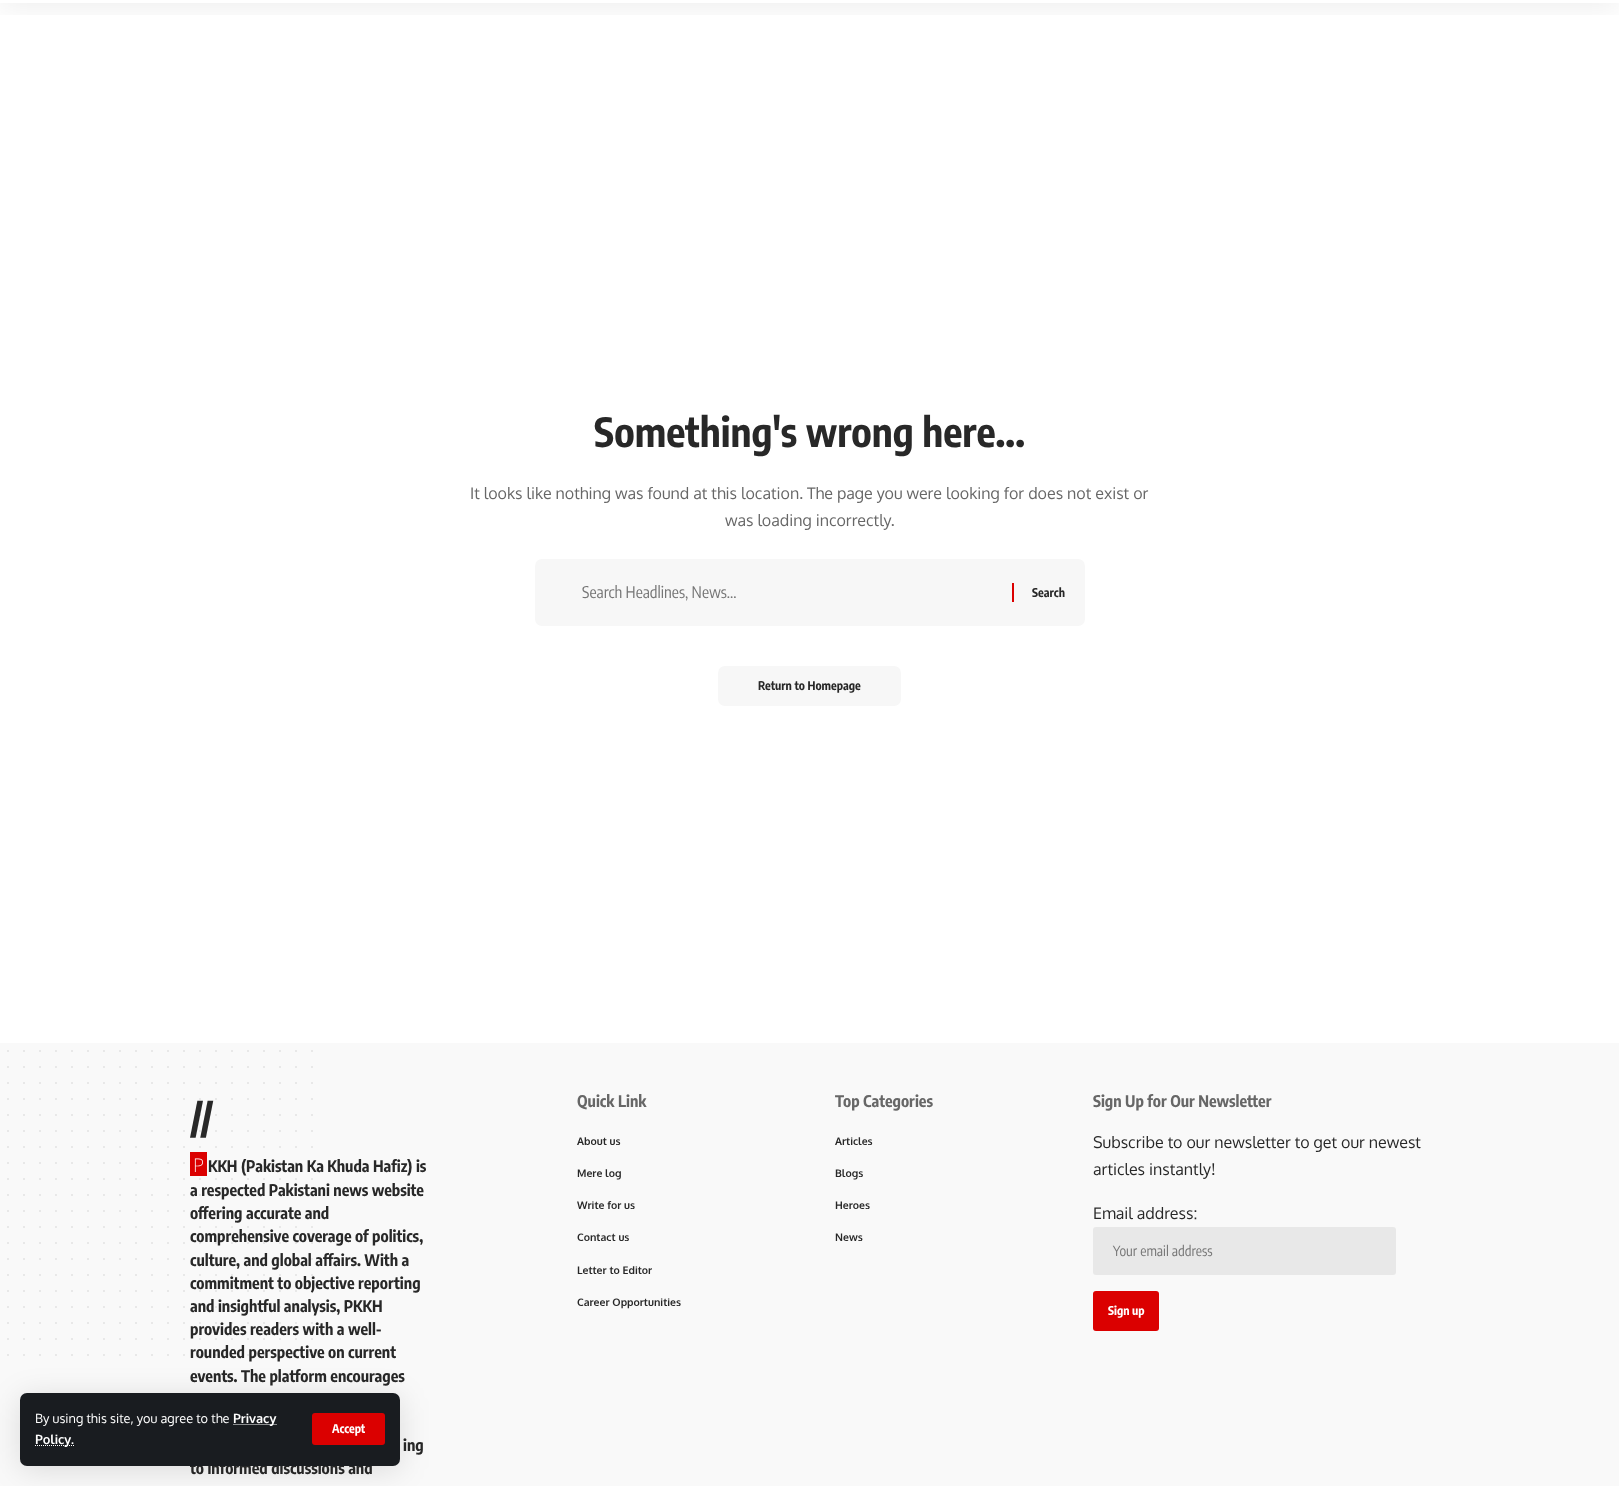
async function draw(canvas) {
	canvas.width = 1619;
	canvas.height = 1486;
	const c = canvas.getContext('2d');
	c.miterLimit = 4;
	c.fontKerning = 'normal';

	c.fillStyle = '#fff';
	c.fillRect(0, 0, 1619, 1486);
	c.font = 'bold 40px Encode Sans Condensed';
	c.fillStyle = '#282828';
	c.fillText('Something\'s wrong here...', 594, 447);
	c.font = '16px Oxygen';
	c.fillStyle = '#676767';
	c.fillText('It looks like nothing was found at this location. The page you were looking for does not exist or', 470, 499);
	c.fillText('was loading incorrectly.', 725, 526);
	c.fillStyle = '#f7f7f7';
	c.beginPath();
	c.roundRect(535, 559, 550, 67, 7);
	c.fill();
	c.font = '16px Encode Sans Condensed';
	c.fillStyle = '#757575';
	c.fillText('Search Headlines, News...', 582, 598);
	c.fillStyle = '#db0000';
	c.fillRect(1012, 583, 2, 19);
	c.font = 'bold 12px Encode Sans Condensed';
	c.fillStyle = '#282828';
	c.fillText('Search', 1032, 597);
	c.fillStyle = '#f7f7f7';
	c.beginPath();
	c.roundRect(718, 666, 183, 40, 7);
	c.fill();
	c.fillStyle = '#282828';
	c.fillText('Return to Homepage', 758, 690);
	c.fillStyle = '#f9f9f9';
	c.fillRect(0, 1043, 1619, 443);
	c.beginPath();
	c.moveTo(8, 1051);
	c.lineTo(312.2, 1051);
	c.strokeStyle = '#cfcfcf';
	c.lineWidth = 1.5;
	c.lineCap = 'round';
	c.setLineDash([0, 16]);
	c.stroke();
	c.beginPath();
	c.moveTo(8, 1067);
	c.lineTo(312.2, 1067);
	c.stroke();
	c.beginPath();
	c.moveTo(8, 1083);
	c.lineTo(312.2, 1083);
	c.stroke();
	c.beginPath();
	c.moveTo(8, 1099);
	c.lineTo(312.2, 1099);
	c.stroke();
	c.beginPath();
	c.moveTo(8, 1115);
	c.lineTo(312.2, 1115);
	c.stroke();
	c.beginPath();
	c.moveTo(8, 1131);
	c.lineTo(312.2, 1131);
	c.stroke();
	c.beginPath();
	c.moveTo(8, 1147);
	c.lineTo(312.2, 1147);
	c.stroke();
	c.beginPath();
	c.moveTo(8, 1163);
	c.lineTo(312.2, 1163);
	c.stroke();
	c.beginPath();
	c.moveTo(8, 1179);
	c.lineTo(312.2, 1179);
	c.stroke();
	c.beginPath();
	c.moveTo(8, 1195);
	c.lineTo(312.2, 1195);
	c.stroke();
	c.beginPath();
	c.moveTo(8, 1211);
	c.lineTo(312.2, 1211);
	c.stroke();
	c.beginPath();
	c.moveTo(8, 1227);
	c.lineTo(312.2, 1227);
	c.stroke();
	c.beginPath();
	c.moveTo(8, 1243);
	c.lineTo(312.2, 1243);
	c.stroke();
	c.beginPath();
	c.moveTo(8, 1259);
	c.lineTo(312.2, 1259);
	c.stroke();
	c.beginPath();
	c.moveTo(8, 1275);
	c.lineTo(312.2, 1275);
	c.stroke();
	c.beginPath();
	c.moveTo(8, 1291);
	c.lineTo(312.2, 1291);
	c.stroke();
	c.beginPath();
	c.moveTo(8, 1307);
	c.lineTo(312.2, 1307);
	c.stroke();
	c.beginPath();
	c.moveTo(8, 1323);
	c.lineTo(312.2, 1323);
	c.stroke();
	c.beginPath();
	c.moveTo(8, 1339);
	c.lineTo(312.2, 1339);
	c.stroke();
	c.beginPath();
	c.moveTo(8, 1355);
	c.lineTo(312.2, 1355);
	c.stroke();
	c.font = 'bold 40px Encode Sans Condensed';
	c.fillStyle = '#282828';
	c.fillText('//', 190, 1133);
	c.fillStyle = '#db0000';
	c.fillRect(190, 1152, 17, 24);
	c.font = '200 19px Noto Sans';
	c.fillStyle = '#fff';
	c.fillText('P', 193, 1172);
	c.font = 'bold 16px Encode Sans Condensed';
	c.fillStyle = '#282828';
	for (const [text, x, y] of [
		['KKH (Pakistan Ka Khuda Hafiz) is', 208, 1172],
		['a respected Pakistani news website', 190, 1196],
		['offering accurate and', 190, 1219],
		['comprehensive coverage of politics,', 190, 1242],
		['culture, and global affairs. With a', 190, 1266],
		['commitment to objective reporting', 190, 1289],
		['and insightful analysis, PKKH', 190, 1312],
		['provides readers with a well-', 190, 1335],
		['rounded perspective on current', 190, 1358],
		['events. The platform encourages', 190, 1382],
		['ing', 403, 1451],
		['to informed discussions and', 190, 1474],
	]) {
		c.fillText(text, x, y);
	}
	c.fillStyle = '#676767';
	c.fillText('Quick Link', 577, 1107);
	c.font = 'bold 10.5px Oxygen';
	c.fillStyle = '#282828';
	for (const [text, x, y] of [
		['About us', 577, 1145],
		['Mere log', 577, 1177],
		['Write for us', 577, 1209],
		['Contact us', 577, 1241],
		['Letter to Editor', 577, 1274],
		['Career Opportunities', 577, 1306],
	]) {
		c.fillText(text, x, y);
	}
	c.font = 'bold 16px Encode Sans Condensed';
	c.fillStyle = '#676767';
	c.fillText('Top Categories', 835, 1107);
	c.font = 'bold 10.5px Oxygen';
	c.fillStyle = '#282828';
	for (const [text, x, y] of [
		['Articles', 835, 1145],
		['Blogs', 835, 1177],
		['Heroes', 835, 1209],
		['News', 835, 1241],
	]) {
		c.fillText(text, x, y);
	}
	c.font = 'bold 16px Encode Sans Condensed';
	c.fillStyle = '#676767';
	c.fillText('Sign Up for Our Newsletter', 1093, 1107);
	c.font = '16px Oxygen';
	c.fillStyle = '#282828';
	for (const [text, x, y] of [
		['Subscribe to our newsletter to get our newest', 1093, 1148],
		['articles instantly!', 1093, 1175],
		['Email address:', 1093, 1219],
	]) {
		c.fillText(text, x, y);
	}
	c.fillStyle = '#e8e8e8';
	c.beginPath();
	c.roundRect(1093, 1227, 303, 48, 3);
	c.fill();
	c.font = '14px Encode Sans Condensed';
	c.fillStyle = '#757575';
	c.fillText('Your email address', 1113, 1256);
	c.fillStyle = '#db0000';
	c.beginPath();
	c.roundRect(1093, 1291, 66, 40, 3);
	c.fill();
	c.font = 'bold 12px Encode Sans Condensed';
	c.fillStyle = '#fff';
	c.fillText('Sign up', 1108, 1315);
	c.save();
	c.beginPath();
	c.rect(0, 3, 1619, 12);
	c.clip();
	c.fillStyle = '#00000012';
	c.filter = 'blur(15px)';
	c.beginPath();
	c.rect(0, -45, 1619, 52);
	c.fill();
	c.filter = 'none';
	c.restore();
	c.fillStyle = '#0000001f';
	c.filter = 'blur(15px)';
	c.beginPath();
	c.roundRect(20, 1397, 380, 73, 7);
	c.fill();
	c.filter = 'none';
	c.fillStyle = '#191c20';
	c.beginPath();
	c.roundRect(20, 1393, 380, 73, 7);
	c.fill();
	c.font = '12.75px Oxygen';
	c.fillStyle = '#fff';
	c.fillText('By using this site, you agree to the', 35, 1423);
	c.beginPath();
	c.moveTo(233.5, 1424.5);
	c.lineTo(277, 1424.5);
	c.strokeStyle = '#fff';
	c.lineWidth = 1;
	c.lineCap = 'butt';
	c.setLineDash([1, 1]);
	c.stroke();
	c.font = 'bold 12.75px Oxygen';
	c.fillText('Privacy', 233, 1423);
	c.beginPath();
	c.moveTo(35, 1445.5);
	c.lineTo(74, 1445.5);
	c.stroke();
	c.fillText('Policy.', 35, 1444);
	c.fillStyle = '#db0000';
	c.beginPath();
	c.roundRect(312, 1413, 73, 32, 3);
	c.fill();
	c.font = 'bold 12px Encode Sans Condensed';
	c.fillStyle = '#fff';
	c.fillText('Accept', 332, 1433);
}

draw(document.querySelector('canvas'));
